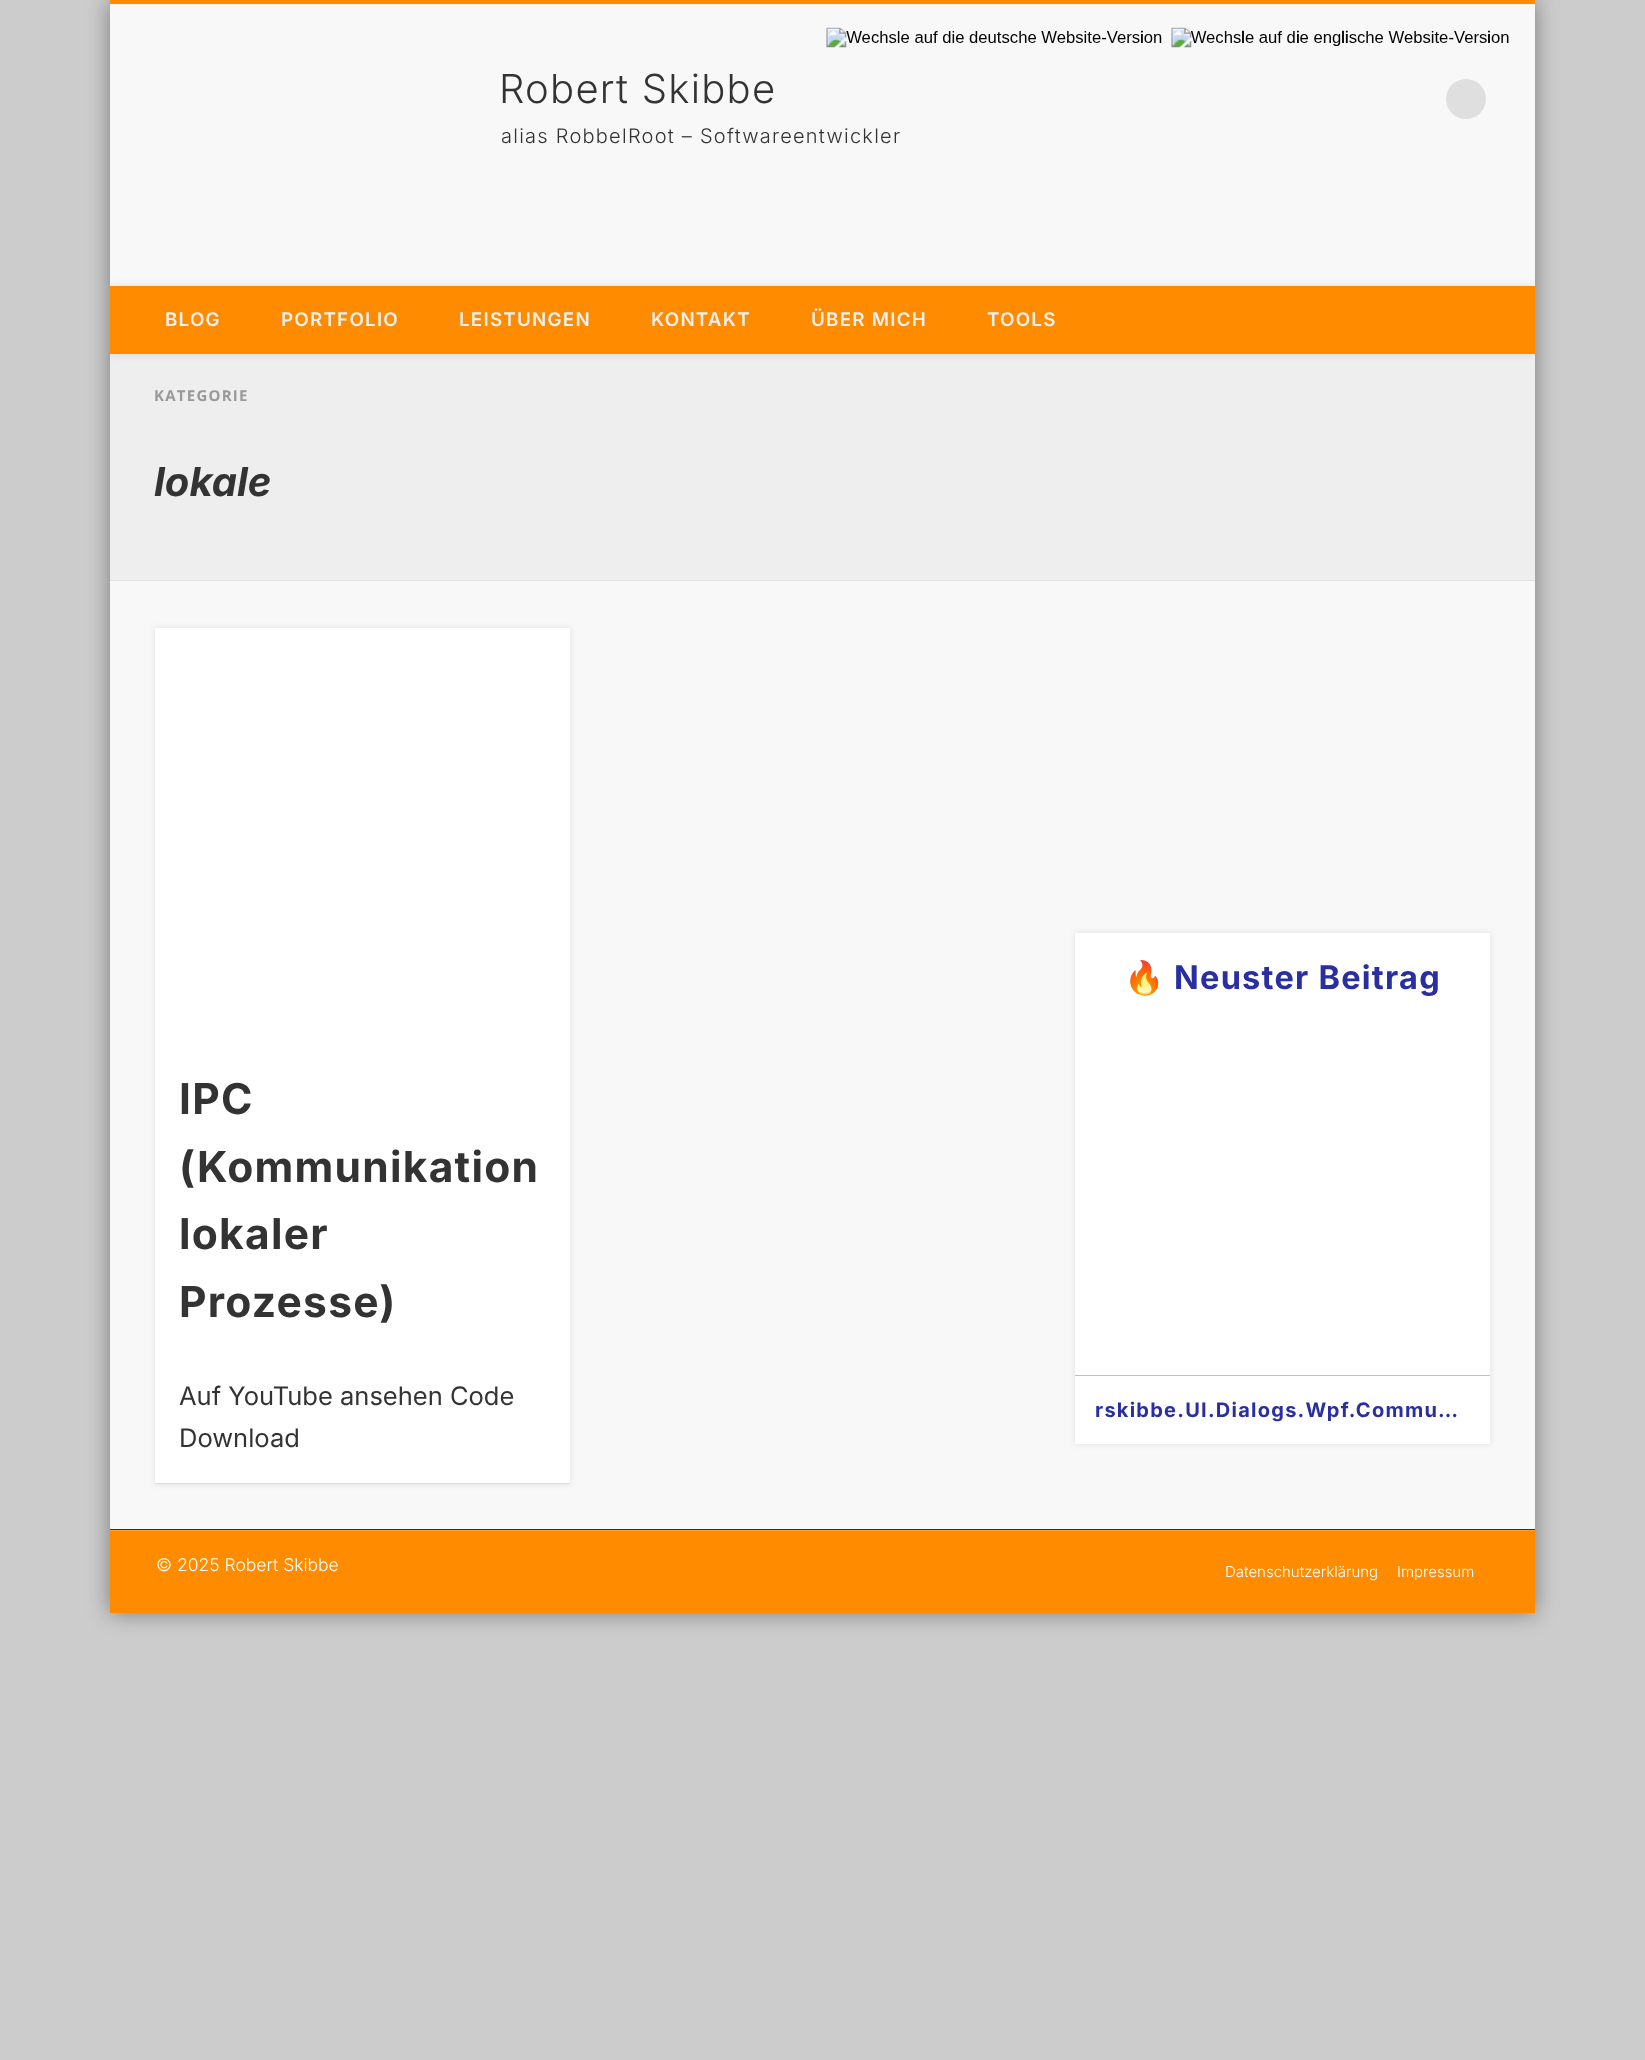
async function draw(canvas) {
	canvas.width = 1645;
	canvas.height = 2060;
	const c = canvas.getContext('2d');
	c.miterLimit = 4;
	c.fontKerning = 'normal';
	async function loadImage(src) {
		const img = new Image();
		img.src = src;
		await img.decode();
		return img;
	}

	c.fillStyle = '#ccc';
	c.fillRect(0, 0, 1645, 2060);
	c.fillStyle = '#00000066';
	c.filter = 'blur(11px)';
	c.beginPath();
	c.rect(110, 0, 1425, 1613);
	c.fill();
	c.filter = 'none';
	c.fillStyle = '#f8f8f8';
	c.fillRect(110, 4, 1425, 1525);
	c.drawImage(await loadImage('img1.png'), 826, 27, 336, 21);
	c.font = '17px Liberation Sans';
	c.fillStyle = '#000';
	c.fillText('i', 1140, 43);
	c.drawImage(await loadImage('img2.png'), 1171, 27, 338, 21);
	for (const [text, x, y] of [
		['l', 1241, 43],
		['i', 1296, 43],
		['li', 1341, 43],
		['i', 1487, 43],
	]) {
		c.fillText(text, x, y);
	}
	c.fillStyle = '#ff8c00';
	c.fillRect(110, 0, 1425, 4);
	c.letterSpacing = '1.25px';
	c.font = '300 40px Inter';
	c.fillStyle = '#333';
	c.fillText('Robert Skibbe', 499, 103);
	c.font = '300 20px Inter';
	c.fillText('alias RobbelRoot – Softwareentwickler', 501, 143);
	c.fillStyle = '#dfdfdf';
	c.beginPath();
	c.arc(1466, 99, 20, 0, 2 * Math.PI);
	c.fill();
	c.fillStyle = '#eee';
	c.fillRect(110, 354, 1425, 226);
	c.save();
	c.beginPath();
	c.rect(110, 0, 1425, 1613);
	c.clip();
	c.fillStyle = '#0000001a';
	c.filter = 'blur(4.5px)';
	c.beginPath();
	c.rect(110, 286, 1425, 68);
	c.fill();
	c.filter = 'none';
	c.restore();
	c.fillStyle = '#ff8c00';
	c.fillRect(110, 286, 1425, 68);
	c.font = '600 18.75px Inter';
	c.fillStyle = '#f0f0f0';
	for (const [text, x, y] of [
		['BLOG', 165, 326],
		['PORTFOLIO', 281, 326],
		['LEISTUNGEN', 459, 326],
		['KONTAKT', 651, 326],
		['ÜBER MICH', 811, 326],
		['TOOLS', 987, 326],
	]) {
		c.fillText(text, x, y);
	}
	c.fillStyle = '#e1e1e1';
	c.fillRect(110, 580, 1425, 1);
	c.font = 'bold 15px Open Sans';
	c.fillStyle = '#999';
	c.fillText('KATEGORIE', 154, 401);
	c.letterSpacing = '0px';
	c.font = 'italic bold 40px Inter';
	c.fillStyle = '#333';
	c.fillText('lokale', 154, 496);
	c.fillStyle = '#0000001a';
	c.filter = 'blur(3px)';
	c.beginPath();
	c.rect(155, 628, 415, 856);
	c.fill();
	c.filter = 'none';
	c.fillStyle = '#fff';
	c.fillRect(155, 628, 415, 855);
	c.fillStyle = '#dedede';
	c.fillRect(155, 1483, 415, 1);
	c.letterSpacing = '1.25px';
	c.font = 'bold 42.5px Inter';
	c.fillStyle = '#333';
	for (const [text, x, y] of [
		['IPC', 179, 1114],
		['(Kommunikation', 179, 1182],
		['lokaler', 179, 1249],
		['Prozesse)', 179, 1317],
	]) {
		c.fillText(text, x, y);
	}
	c.letterSpacing = '0px';
	c.font = '25.5px Inter';
	c.fillText('Auf YouTube ansehen Code', 179, 1405);
	c.fillText('Download', 179, 1447);
	c.fillStyle = '#0000001a';
	c.filter = 'blur(3px)';
	c.beginPath();
	c.rect(1075, 933, 415, 511);
	c.fill();
	c.filter = 'none';
	c.fillStyle = '#fff';
	c.fillRect(1075, 933, 415, 511);
	c.letterSpacing = '1.25px';
	c.font = 'bold 32.5px Noto Color Emoji';
	c.fillStyle = '#292fa3';
	c.fillText('🔥', 1124, 989);
	c.font = 'bold 32.5px Inter';
	c.fillText('Neuster Beitrag', 1174, 989);
	c.fillStyle = '#c0c0c0';
	c.fillRect(1075, 1375, 415, 1);
	c.font = 'bold 20px Inter';
	c.fillStyle = '#292fa3';
	c.fillText('rskibbe.UI.Dialogs.Wpf.Commu…', 1095, 1417);
	for (const [x, y, w, h, color] of [
		[110, 1529, 1425, 1, '#343434'],
		[110, 1531, 1425, 82, '#ff8c00'],
		[110, 1530, 1425, 1, '#ff9d25'],
	]) {
		c.fillStyle = color;
		c.fillRect(x, y, w, h);
	}
	c.letterSpacing = '0px';
	c.font = '300 17.5px Inter';
	c.fillStyle = '#fff';
	c.fillText('© 2025 Robert Skibbe', 156, 1571);
	c.font = '300 15px Inter';
	c.fillText('Datenschutzerklärung', 1225, 1577);
	c.fillText('Impressum', 1397, 1577);
}

draw(document.querySelector('canvas'));
